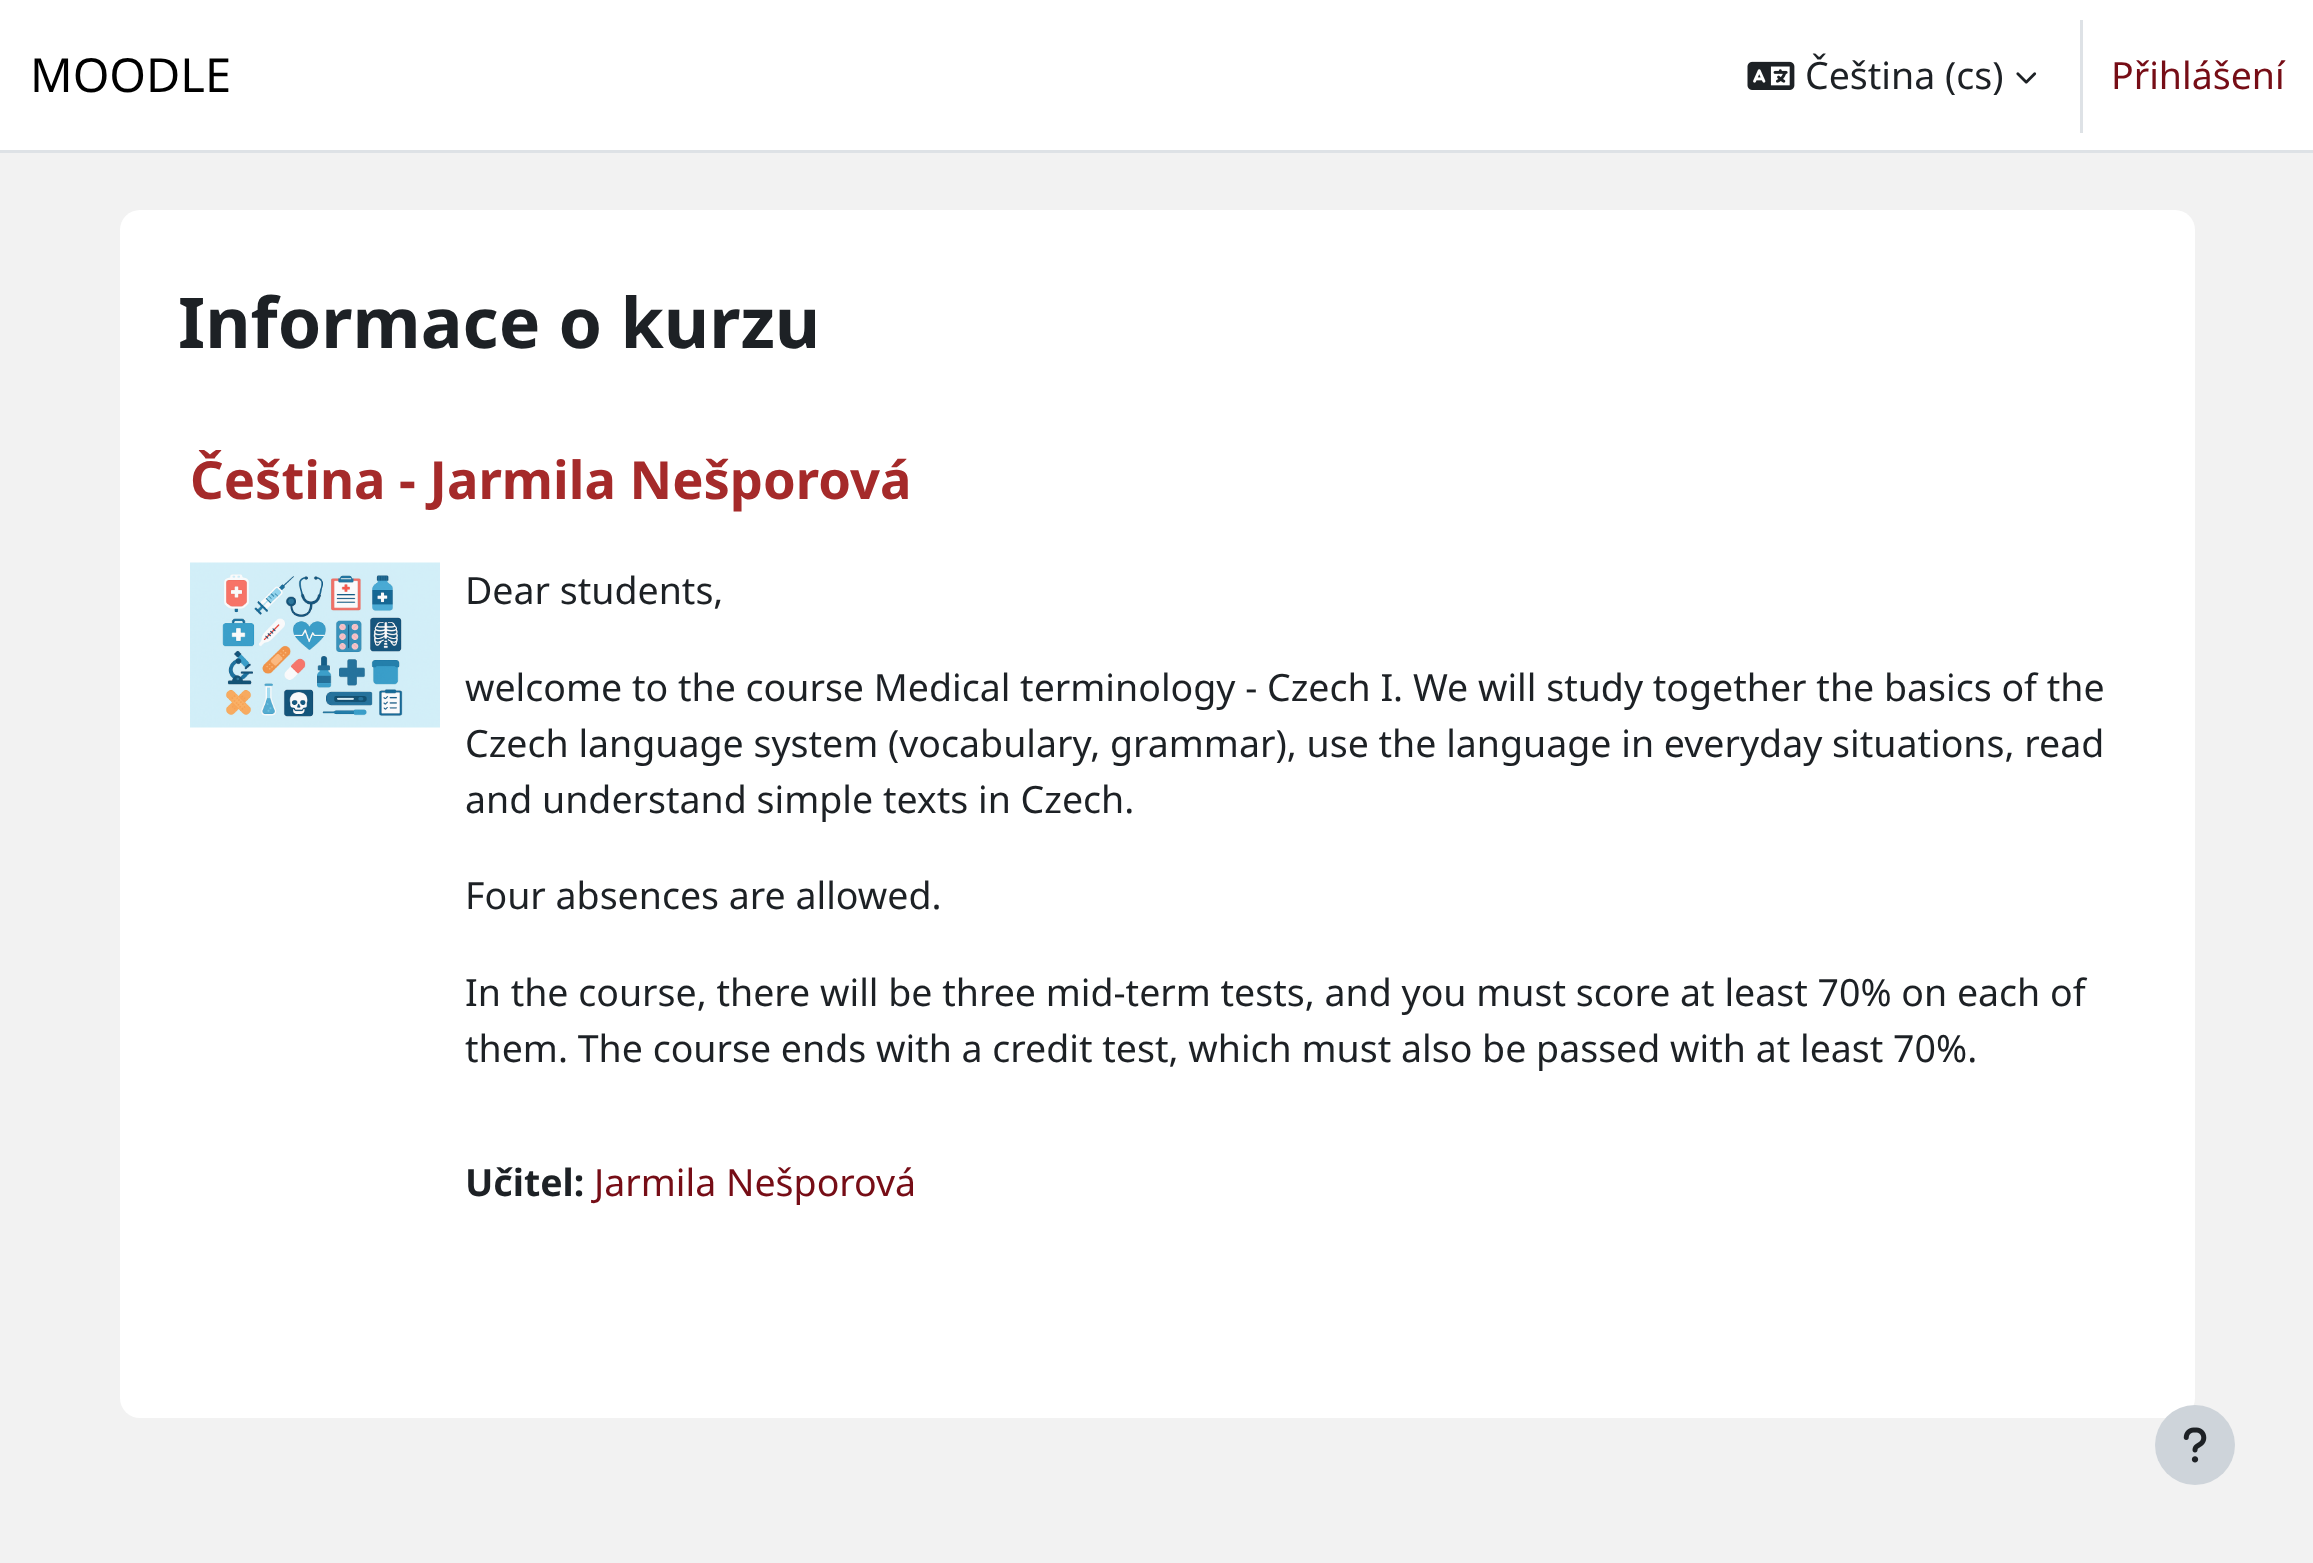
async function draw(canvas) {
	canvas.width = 2313;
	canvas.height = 1563;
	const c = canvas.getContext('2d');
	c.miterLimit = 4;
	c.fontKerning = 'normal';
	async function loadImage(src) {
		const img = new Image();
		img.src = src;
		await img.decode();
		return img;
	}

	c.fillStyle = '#f2f2f2';
	c.fillRect(0, 0, 2313, 1563);
	c.fillStyle = '#fff';
	c.fillRect(0, 0, 2313, 150);
	c.fillStyle = '#dee2e6';
	c.fillRect(0, 150, 2313, 3);
	c.font = '47px Noto Sans';
	c.fillStyle = '#000';
	c.fillText('MOODLE', 30, 92);
	c.drawImage(await loadImage('img1.png'), 1747, 61, 48, 29);
	c.font = '37.5px Noto Sans';
	c.fillStyle = '#1d2125';
	c.fillText('Čeština (cs)', 1805, 89);
	c.drawImage(await loadImage('img2.png'), 2016, 72, 21, 12);
	c.fillStyle = '#dee2e6';
	c.fillRect(2080, 20, 3, 113);
	c.fillStyle = '#760d16';
	c.fillText('Přihlášení', 2111, 89);
	c.fillStyle = '#fff';
	c.beginPath();
	c.roundRect(120, 210, 2075, 1208, 20);
	c.fill();
	c.font = 'bold 69.9px Noto Sans';
	c.fillStyle = '#1d2125';
	c.fillText('Informace o kurzu', 178, 348);
	c.font = 'bold 52.5px Noto Sans';
	c.fillStyle = '#a52a2a';
	c.fillText('Čeština - Jarmila Nešporová', 190, 499);
	c.drawImage(await loadImage('img3.png'), 190, 562, 250, 166);
	c.font = '37.5px Noto Sans';
	c.fillStyle = '#1d2125';
	for (const [text, x, y] of [
		['Dear students,', 465, 604],
		['welcome to the course Medical terminology - Czech I. We will study together the basics of the', 465, 701],
		['Czech language system (vocabulary, grammar), use the language in everyday situations, read', 465, 757],
		['and understand simple texts in Czech.', 465, 813],
		['Four absences are allowed.', 465, 909],
		['In the course, there will be three mid-term tests, and you must score at least 70% on each of', 465, 1006],
		['them. The course ends with a credit test, which must also be passed with at least 70%.', 465, 1062],
	]) {
		c.fillText(text, x, y);
	}
	c.font = 'bold 37.5px Noto Sans';
	c.fillText('Učitel:', 465, 1196);
	c.font = '37.5px Noto Sans';
	c.fillStyle = '#760d16';
	c.fillText('Jarmila Nešporová', 594, 1196);
	c.fillStyle = '#ced4da';
	c.beginPath();
	c.arc(2195, 1445, 40, 0, 2 * Math.PI);
	c.fill();
	c.drawImage(await loadImage('img4.png'), 2183, 1427, 24, 36);
}

draw(document.querySelector('canvas'));
